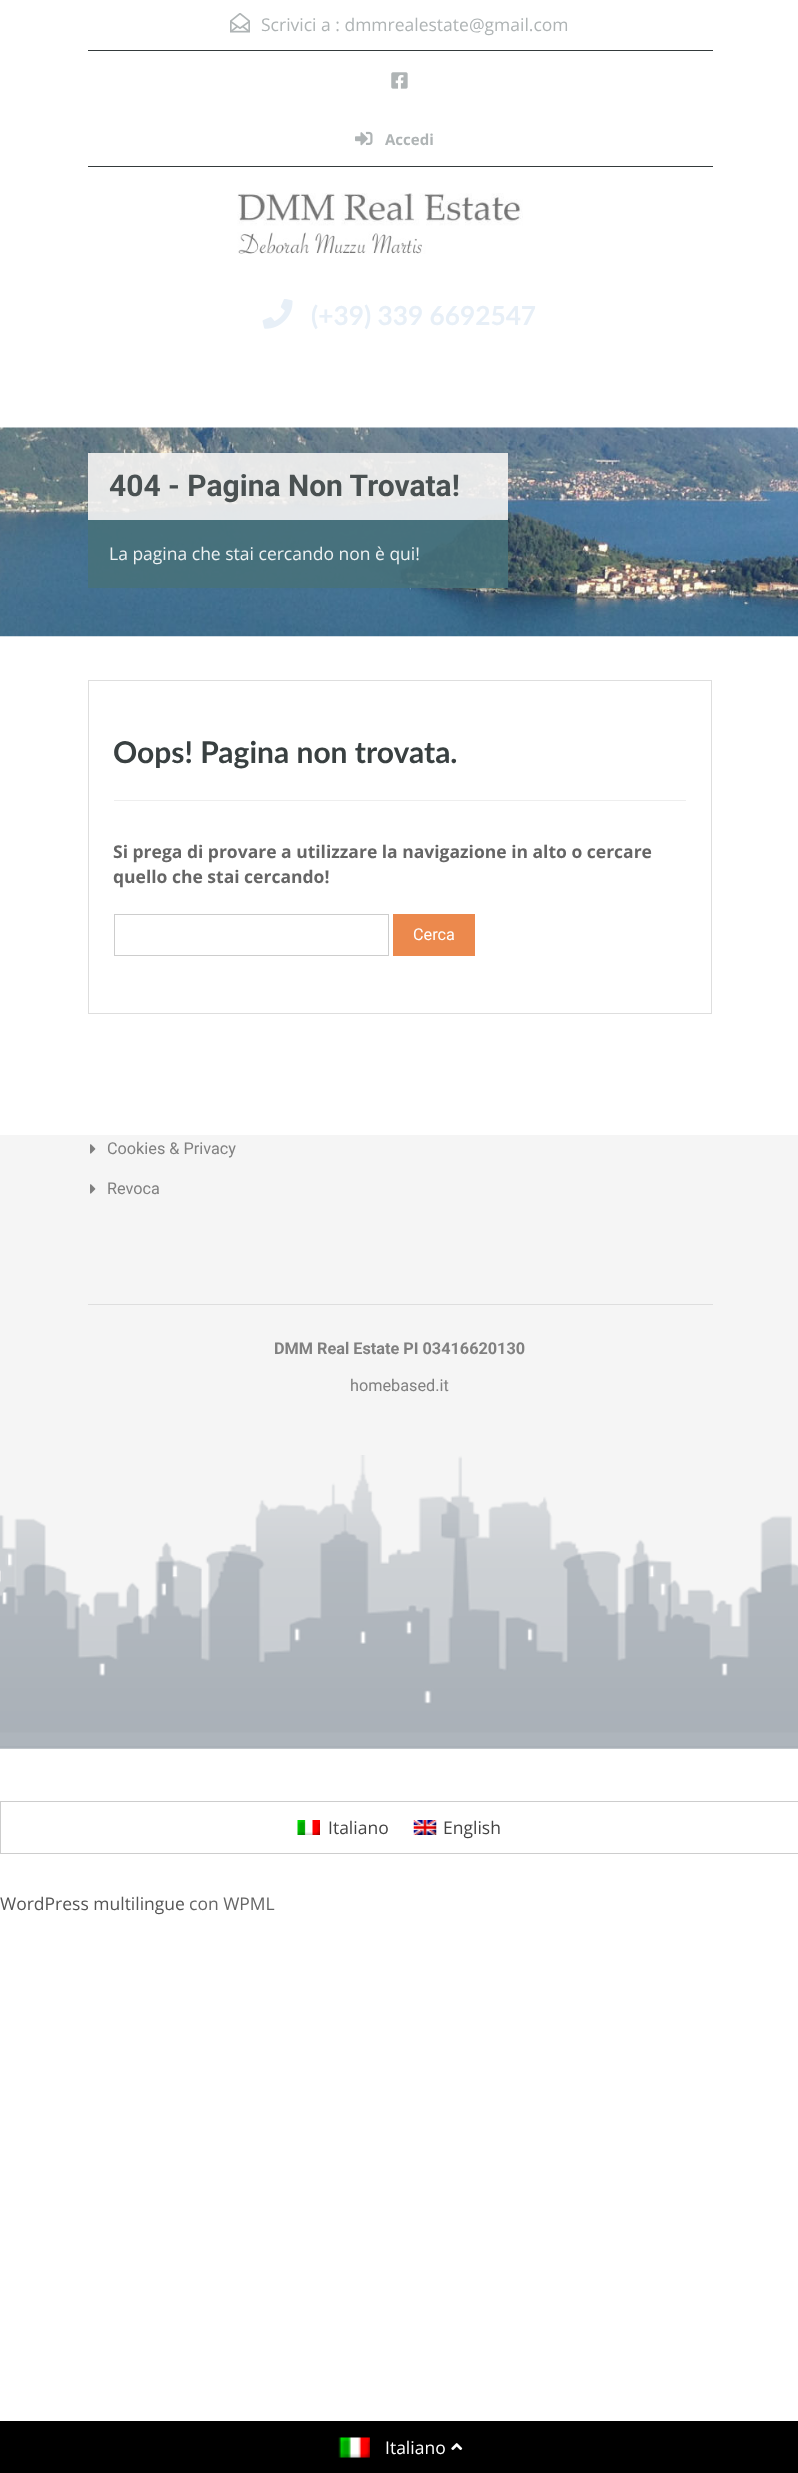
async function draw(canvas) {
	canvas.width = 798;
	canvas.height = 2473;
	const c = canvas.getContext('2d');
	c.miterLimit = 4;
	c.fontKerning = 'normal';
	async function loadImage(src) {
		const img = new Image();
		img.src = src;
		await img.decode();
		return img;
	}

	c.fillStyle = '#fff';
	c.fillRect(0, 0, 798, 2473);
	c.fillStyle = '#343a3b';
	c.fillRect(88, 166, 625, 1);
	c.drawImage(await loadImage('img1.png'), 230, 13, 20, 20);
	c.font = '17.5px Open Sans';
	c.fillStyle = '#afb4b5';
	c.fillText('Scrivici a : dmmrealestate@gmail.com', 261, 31);
	c.fillStyle = '#343a3b';
	c.fillRect(88, 50, 625, 1);
	c.drawImage(await loadImage('img2.png'), 391, 72, 17, 17);
	c.drawImage(await loadImage('img3.png'), 355, 131, 18, 15);
	c.font = 'bold 15px Open Sans';
	c.fillStyle = '#afb4b5';
	c.fillText('Accedi', 385, 145);
	c.drawImage(await loadImage('img4.png'), 237, 193, 286, 61);
	c.drawImage(await loadImage('img5.png'), 262, 299, 31, 30);
	c.font = 'bold 26.25px Lato';
	c.fillStyle = '#e7eff7';
	c.fillText('(+39) 339 6692547', 311, 325);
	c.drawImage(await loadImage('img6.png'), 0, 427, 798, 210);
	c.fillStyle = '#f5f4f3e6';
	c.fillRect(88, 453, 420, 67);
	c.font = 'bold 30px Roboto';
	c.fillStyle = '#4a5152';
	c.fillText('404 - Pagina Non Trovata!', 109, 496);
	c.fillStyle = '#47717ae6';
	c.fillRect(88, 520, 420, 68);
	c.font = '17.5px Open Sans';
	c.fillStyle = '#edf1f2';
	c.fillText('La pagina che stai cercando non è qui!', 109, 560);
	for (const [x, y, w, h, color] of [
		[711, 680, 1, 334, '#dedede'],
		[88, 680, 1, 334, '#dedede'],
		[89, 680, 622, 1, '#dedede'],
		[89, 1013, 622, 1, '#dedede'],
		[114, 800, 572, 1, '#eee'],
	]) {
		c.fillStyle = color;
		c.fillRect(x, y, w, h);
	}
	c.font = 'bold 30px Lato';
	c.fillStyle = '#394041';
	c.fillText('Oops! Pagina non trovata.', 113, 763);
	c.font = 'bold 17.5px Open Sans';
	c.fillStyle = '#666';
	c.fillText('Si prega di provare a utilizzare la navigazione in alto o cercare', 113, 858);
	c.fillText('quello che stai cercando!', 113, 883);
	c.strokeStyle = '#cdcdcd';
	c.strokeRect(114.5, 914.5, 274, 41);
	c.fillStyle = '#ec894d';
	c.fillRect(393, 914, 82, 42);
	c.font = '16.25px Roboto';
	c.fillStyle = '#fff';
	c.fillText('Cerca', 413, 940);
	c.fillStyle = '#f5f5f5';
	c.fillRect(0, 1135, 798, 614);
	c.drawImage(await loadImage('img7.png'), 0, 1455, 798, 294);
	c.drawImage(await loadImage('img8.png'), 90, 1144, 6, 10);
	c.fillStyle = '#808080';
	c.fillText('Cookies & Privacy', 107, 1154);
	c.drawImage(await loadImage('img8.png'), 90, 1184, 6, 10);
	c.fillText('Revoca', 107, 1194);
	c.fillStyle = '#dedede';
	c.fillRect(88, 1304, 625, 1);
	c.font = 'bold 16.25px Roboto';
	c.fillStyle = '#808080';
	c.fillText('DMM Real Estate PI 03416620130', 274, 1354);
	c.font = '16.25px Roboto';
	c.fillText('homebased.it', 350, 1391);
	c.strokeRect(0.5, 1801.5, 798, 52);
	c.drawImage(await loadImage('img9.png'), 297, 1820, 23, 15);
	c.font = '17.5px Open Sans';
	c.fillStyle = '#444';
	c.fillText('Italiano', 328, 1834);
	c.drawImage(await loadImage('img10.png'), 413, 1820, 24, 15);
	c.fillText('English', 443, 1834);
	c.fillStyle = '#555';
	c.fillText('WordPress multilingue', 0, 1910);
	c.fillStyle = '#666';
	c.fillText('con WPML', 189, 1910);
	c.fillStyle = '#000';
	c.fillRect(0, 2421, 798, 52);
	c.drawImage(await loadImage('img11.png'), 338, 2437, 32, 21);
	c.fillStyle = '#fff';
	c.fillText('Italiano', 385, 2454);
	c.drawImage(await loadImage('img12.png'), 451, 2443, 12, 7);
}

draw(document.querySelector('canvas'));
